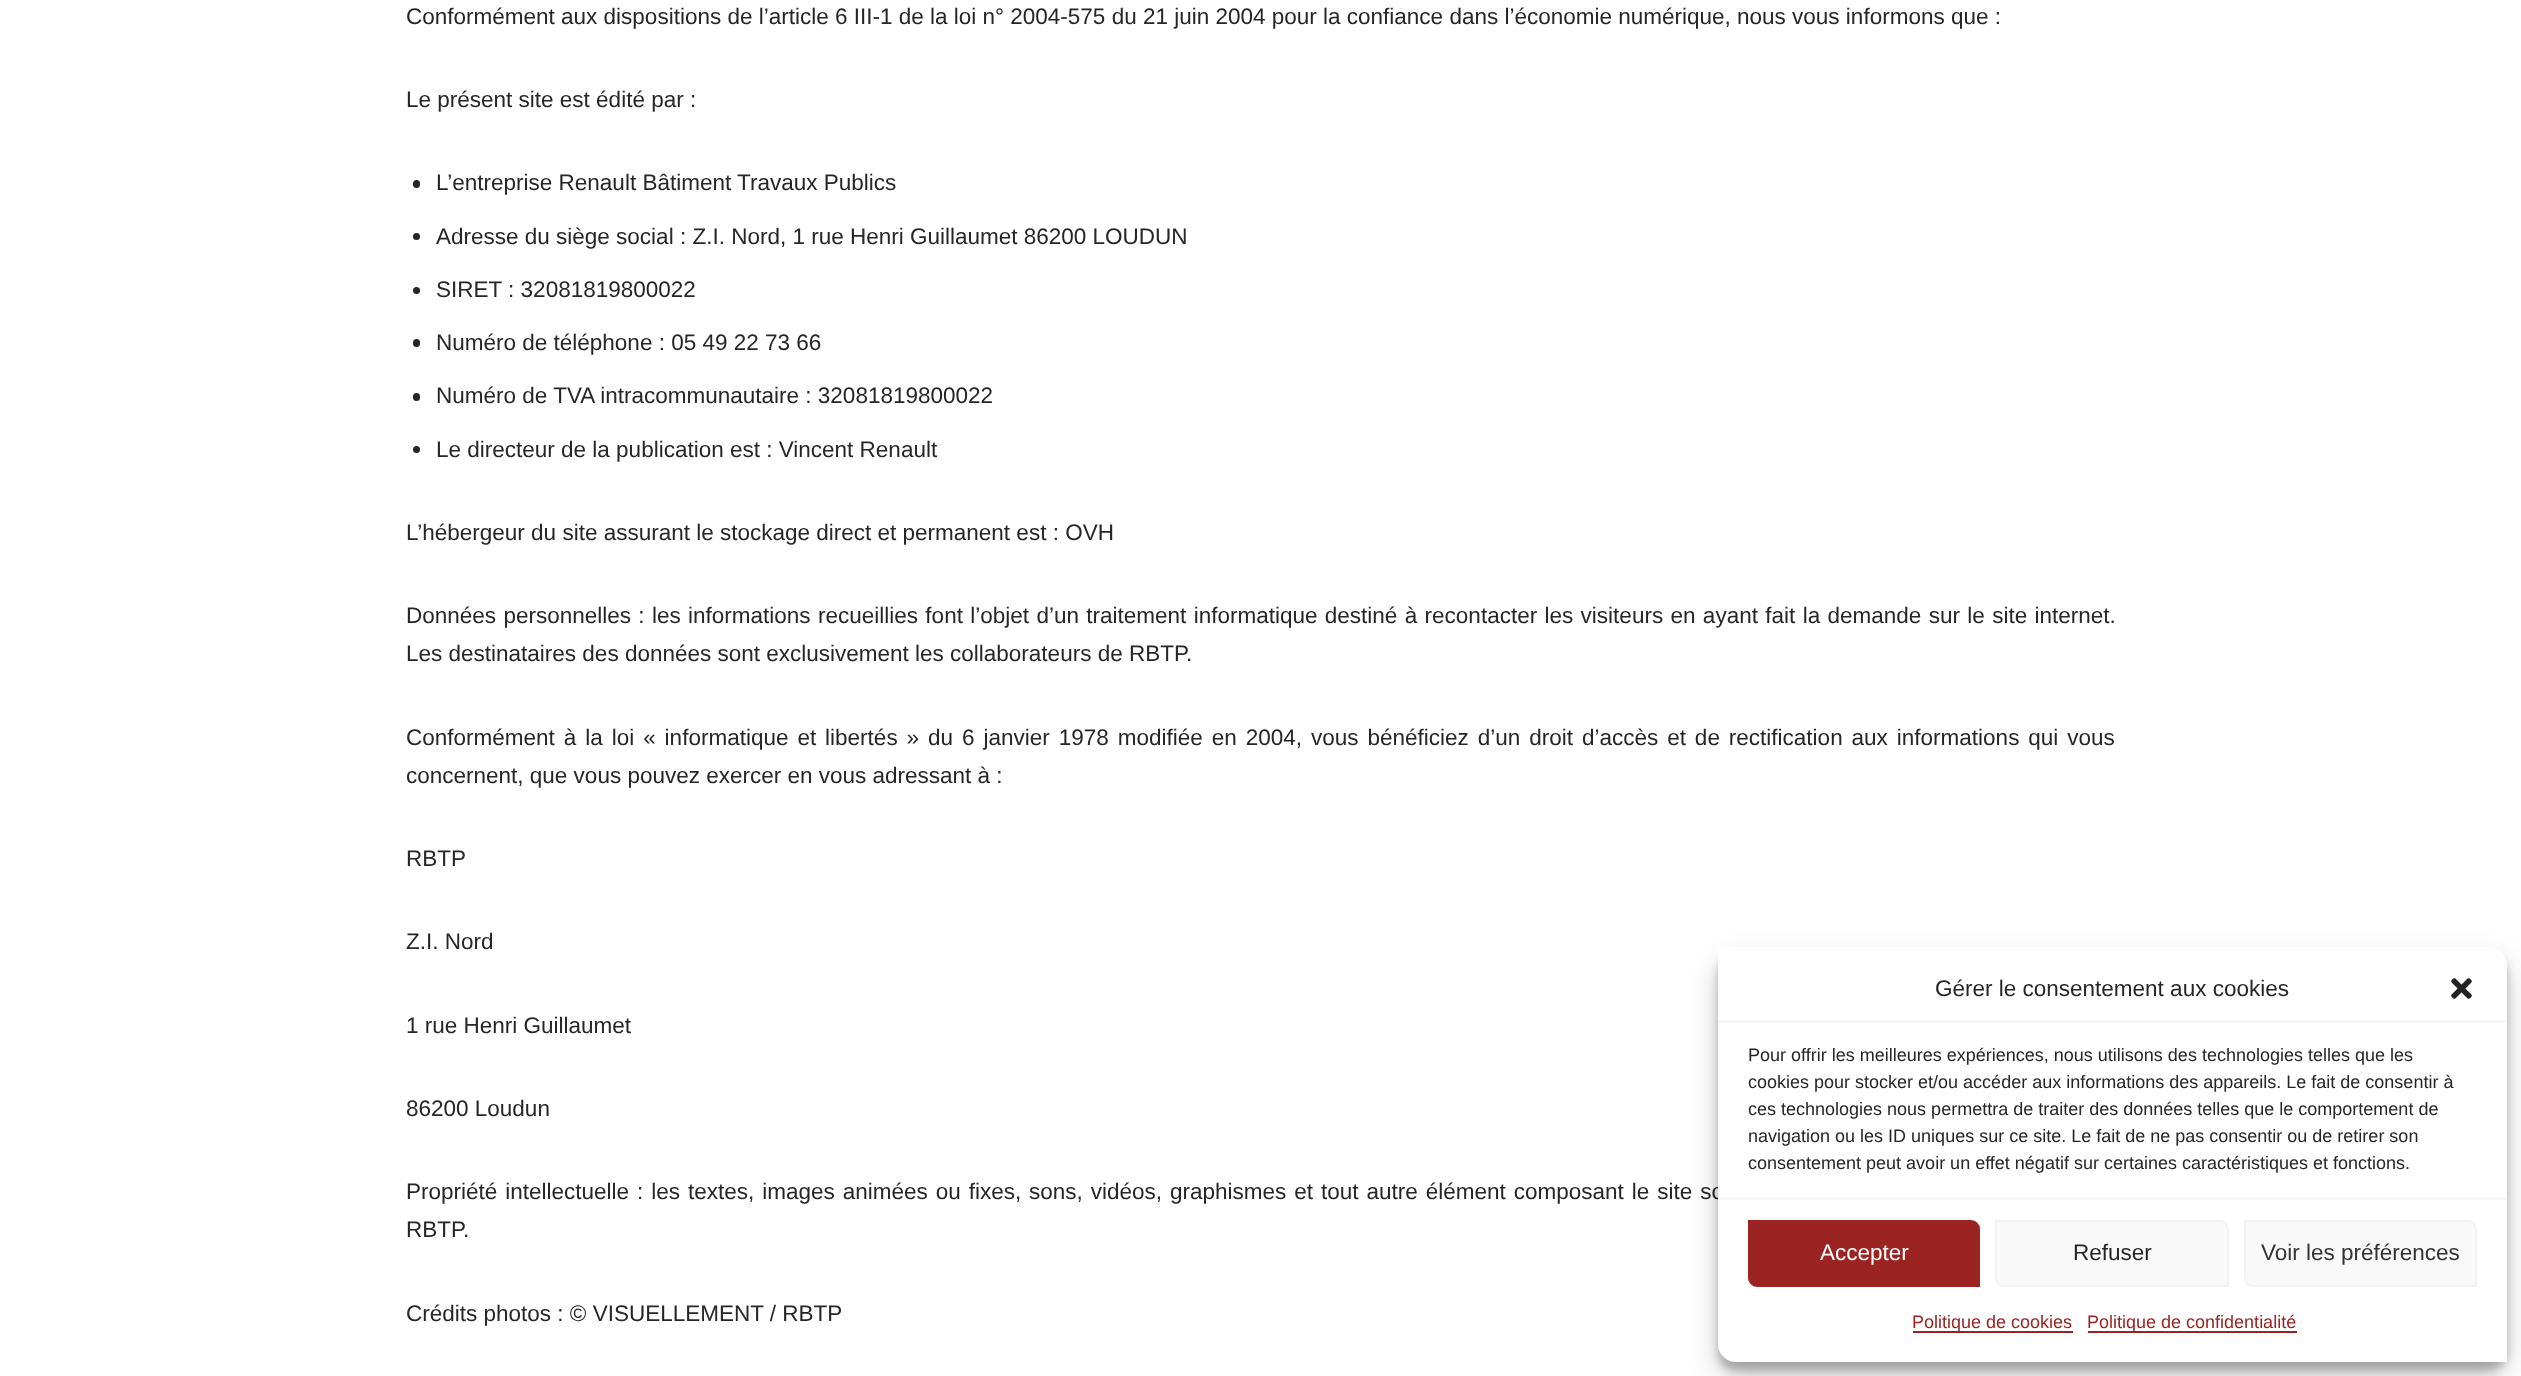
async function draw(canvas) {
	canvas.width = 2521;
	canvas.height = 1376;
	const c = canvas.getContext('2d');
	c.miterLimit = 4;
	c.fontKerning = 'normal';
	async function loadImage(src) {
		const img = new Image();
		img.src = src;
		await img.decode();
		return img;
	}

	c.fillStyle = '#fff';
	c.fillRect(0, 0, 2521, 1376);
	c.font = '22.5px Liberation Sans';
	c.fillStyle = '#272626';
	c.fillText('Conformément aux dispositions de l’article 6 III-1 de la loi n° 2004-575 du 21 juin 2004 pour la confiance dans l’économie numérique, nous vous informons que :', 406, 24);
	c.fillText('Le présent site est édité par :', 406, 107);
	c.beginPath();
	c.roundRect(413, 180, 7, 8, 3.5);
	c.fill();
	c.fillText('L’entreprise Renault Bâtiment Travaux Publics', 436, 190);
	c.beginPath();
	c.arc(416.5, 236.5, 3.5, 0, 2 * Math.PI);
	c.fill();
	c.fillText('Adresse du siège social : Z.I. Nord, 1 rue Henri Guillaumet 86200 LOUDUN', 436, 244);
	c.beginPath();
	c.arc(416.5, 290.5, 3.5, 0, 2 * Math.PI);
	c.fill();
	c.fillText('SIRET : 32081819800022', 436, 297);
	c.beginPath();
	c.roundRect(413, 339, 7, 8, 3.5);
	c.fill();
	c.fillText('Numéro de téléphone : 05 49 22 73 66', 436, 350);
	c.beginPath();
	c.roundRect(413, 393, 7, 8, 3.5);
	c.fill();
	c.fillText('Numéro de TVA intracommunautaire : 32081819800022', 436, 403);
	c.beginPath();
	c.arc(416.5, 449.5, 3.5, 0, 2 * Math.PI);
	c.fill();
	c.fillText('Le directeur de la publication est : Vincent Renault', 436, 457);
	c.fillText('L’hébergeur du site assurant le stockage direct et permanent est : OVH', 406, 540);
	c.wordSpacing = '1.1px';
	c.fillText('Données personnelles : les informations recueillies font l’objet d’un traitement informatique destiné à recontacter les visiteurs en ayant fait la demande sur le site internet.', 406, 623);
	c.wordSpacing = '0px';
	c.fillText('Les destinataires des données sont exclusivement les collaborateurs de RBTP.', 406, 661);
	c.wordSpacing = '2.7px';
	c.fillText('Conformément à la loi « informatique et libertés » du 6 janvier 1978 modifiée en 2004, vous bénéficiez d’un droit d’accès et de rectification aux informations qui vous', 406, 745);
	c.wordSpacing = '0px';
	for (const [text, x, y] of [
		['concernent, que vous pouvez exercer en vous adressant à :', 406, 783],
		['RBTP', 406, 866],
		['Z.I. Nord', 406, 949],
		['1 rue Henri Guillaumet', 406, 1033],
		['86200 Loudun', 406, 1116],
	]) {
		c.fillText(text, x, y);
	}
	c.wordSpacing = '1.7px';
	c.fillText('Propriété intellectuelle : les textes, images animées ou fixes, sons, vidéos, graphismes et tout autre élément composant le site so', 406, 1199);
	c.wordSpacing = '0px';
	c.fillText('RBTP.', 406, 1237);
	c.fillText('Crédits photos : © VISUELLEMENT / RBTP', 406, 1321);
	c.fillStyle = '#0000003b';
	c.filter = 'blur(4.5px)';
	c.beginPath();
	c.roundRect(1718, 956, 789, 415, 18);
	c.fill();
	c.filter = 'none';
	c.fillStyle = '#00000030';
	c.filter = 'blur(15px)';
	c.beginPath();
	c.roundRect(1718, 962, 789, 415, 18);
	c.fill();
	c.filter = 'none';
	c.fillStyle = '#fff';
	c.beginPath();
	c.roundRect(1718, 947, 789, 415, [0, 18, 0, 18]);
	c.fill();
	c.fillStyle = '#272626';
	c.fillText('Gérer le consentement aux cookies', 1935, 996);
	c.drawImage(await loadImage('img1.png'), 2451, 978, 21, 21);
	c.save();
	c.beginPath();
	c.rect(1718, 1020, 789, 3);
	c.clip();
	c.fillStyle = '#0000000d';
	c.filter = 'blur(2px)';
	c.beginPath();
	c.rect(1718, 1020, 789, 5);
	c.fill();
	c.filter = 'none';
	c.restore();
	c.font = '18px Liberation Sans';
	for (const [text, x, y] of [
		['Pour offrir les meilleures expériences, nous utilisons des technologies telles que les', 1748, 1061],
		['cookies pour stocker et/ou accéder aux informations des appareils. Le fait de consentir à', 1748, 1088],
		['ces technologies nous permettra de traiter des données telles que le comportement de', 1748, 1115],
		['navigation ou les ID uniques sur ce site. Le fait de ne pas consentir ou de retirer son', 1748, 1142],
		['consentement peut avoir un effet négatif sur certaines caractéristiques et fonctions.', 1748, 1169],
	]) {
		c.fillText(text, x, y);
	}
	c.save();
	c.beginPath();
	c.rect(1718, 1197, 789, 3);
	c.clip();
	c.fillStyle = '#0000000d';
	c.filter = 'blur(2px)';
	c.beginPath();
	c.rect(1718, 1197, 789, 5);
	c.fill();
	c.filter = 'none';
	c.restore();
	c.fillStyle = '#9b2423';
	c.beginPath();
	c.roundRect(1749, 1221, 230, 65, [0, 8, 0, 8]);
	c.fill();
	c.strokeStyle = '#9b2423';
	c.lineWidth = 2;
	c.stroke();
	c.font = '22.5px Liberation Sans';
	c.fillStyle = '#fff';
	c.fillText('Accepter', 1820, 1260);
	c.fillStyle = '#f9f9f9';
	c.beginPath();
	c.roundRect(1996, 1221, 232, 65, [0, 8, 0, 8]);
	c.fill();
	c.strokeStyle = '#f2f2f2';
	c.stroke();
	c.fillStyle = '#272626';
	c.fillText('Refuser', 2073, 1260);
	c.fillStyle = '#f9f9f9';
	c.beginPath();
	c.roundRect(2245, 1221, 231, 65, [0, 8, 0, 8]);
	c.fill();
	c.stroke();
	c.fillStyle = '#333';
	c.fillText('Voir les préférences', 2261, 1260);
	c.fillStyle = '#9b2423';
	c.fillRect(1913, 1331, 160, 2);
	c.font = '18px Liberation Sans';
	c.fillText('Politique de cookies', 1912, 1328);
	c.fillRect(2088, 1331, 209, 2);
	c.fillText('Politique de confidentialité', 2087, 1328);
}

draw(document.querySelector('canvas'));
